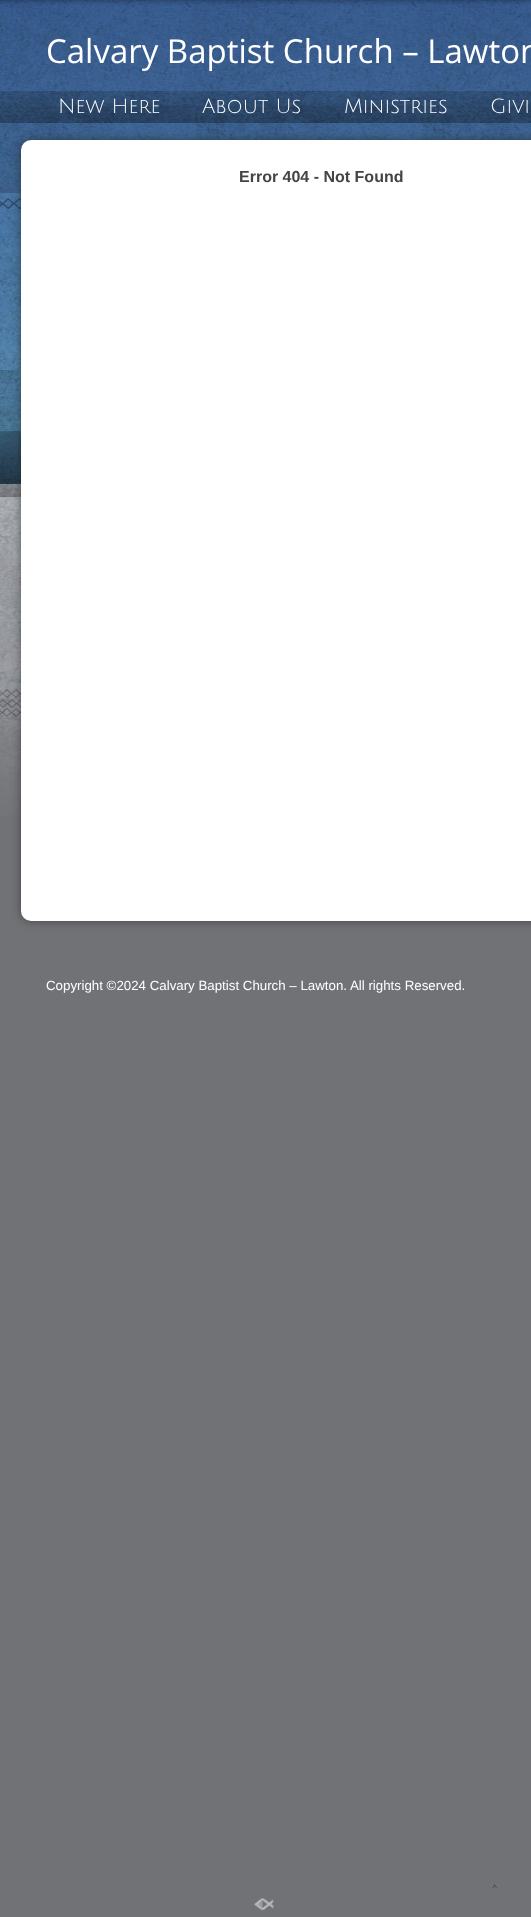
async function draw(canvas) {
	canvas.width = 531;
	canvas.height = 1917;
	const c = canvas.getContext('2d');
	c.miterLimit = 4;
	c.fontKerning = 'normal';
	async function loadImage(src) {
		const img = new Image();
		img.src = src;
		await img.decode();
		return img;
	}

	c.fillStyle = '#717276';
	c.fillRect(0, 0, 531, 1917);
	c.drawImage(await loadImage('img1.png'), 0, 0, 531, 816);
	c.font = '33px Open Sans';
	c.fillStyle = '#fff';
	c.fillText('Calvary Baptist Church – Lawton', 46, 63);
	c.font = '20px Julius Sans One';
	for (const [text, x, y] of [
		['New Here', 58, 113],
		['About Us', 202, 113],
		['Ministries', 344, 113],
		['Givi', 490, 113],
	]) {
		c.fillText(text, x, y);
	}
	c.fillStyle = '#1e1e1e8c';
	c.filter = 'blur(5px)';
	c.beginPath();
	c.roundRect(21, 140, 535, 781, 10);
	c.fill();
	c.filter = 'none';
	c.fillStyle = '#fff';
	c.beginPath();
	c.roundRect(21, 140, 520, 781, 10);
	c.fill();
	c.font = 'bold 16px Liberation Sans';
	c.fillStyle = '#444';
	c.fillText('Error 404 - Not Found', 239, 182);
	c.font = '13.3px Liberation Sans';
	c.fillStyle = '#fff';
	c.fillText('Copyright ©2024 Calvary Baptist Church – Lawton. All rights Reserved.', 46, 990);
	c.drawImage(await loadImage('img2.png'), 254, 1898, 20, 13);
	c.font = '20px Julius Sans One';
	c.fillStyle = '#444';
	c.fillText('^', 491, 1897);
}

draw(document.querySelector('canvas'));
